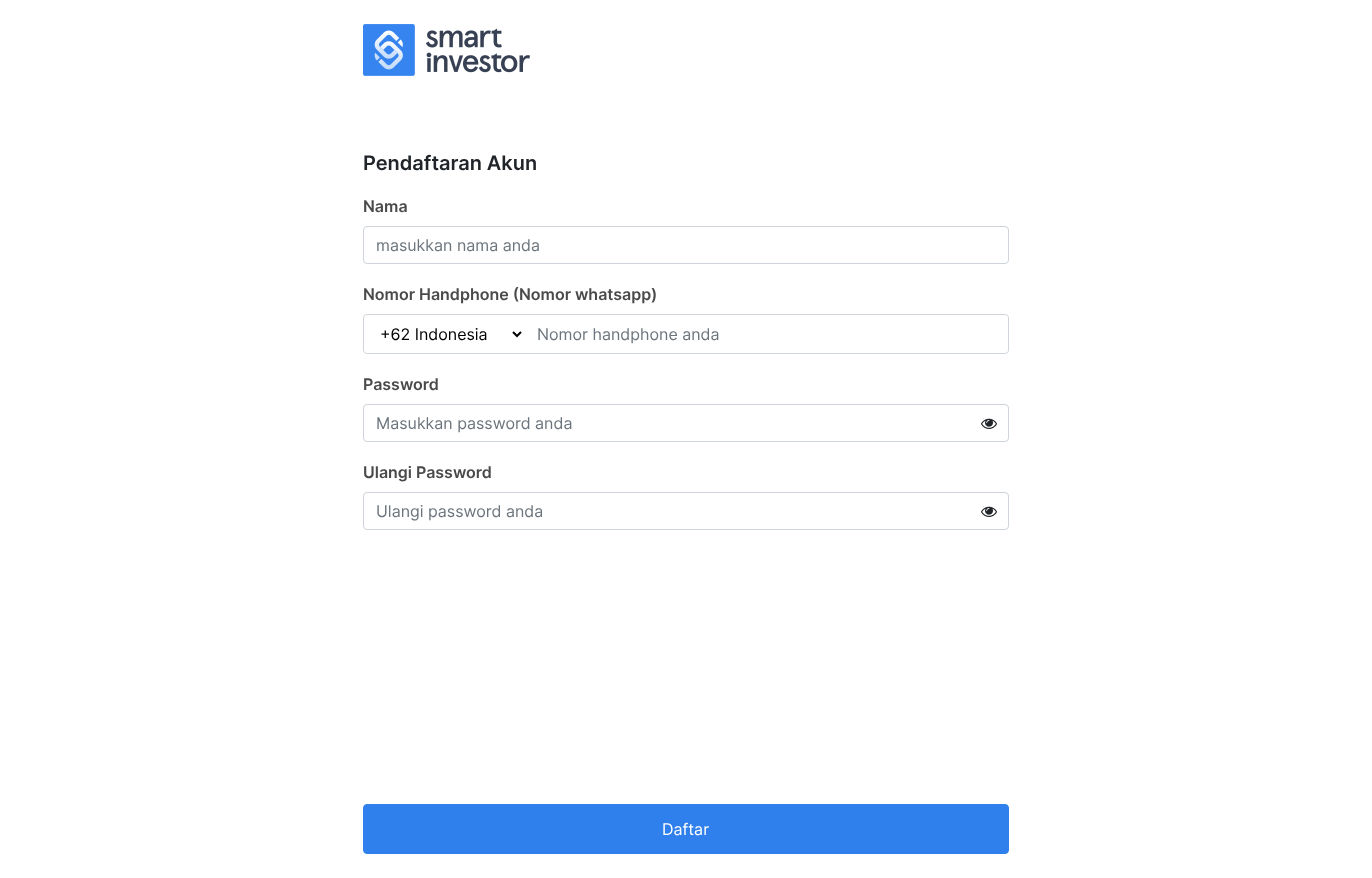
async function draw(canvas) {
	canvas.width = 1372;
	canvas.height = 878;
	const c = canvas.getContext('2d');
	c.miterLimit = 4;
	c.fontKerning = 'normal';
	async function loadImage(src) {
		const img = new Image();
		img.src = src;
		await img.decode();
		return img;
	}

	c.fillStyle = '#fff';
	c.fillRect(0, 0, 1372, 878);
	c.drawImage(await loadImage('img1.png'), 363, 24, 167, 52);
	c.font = '600 20px Inter';
	c.fillStyle = '#212529';
	c.fillText('Pendaftaran Akun', 363, 170);
	c.font = '600 16px Inter';
	c.fillStyle = '#4a4a4a';
	c.fillText('Nama', 363, 212);
	c.beginPath();
	c.roundRect(363.5, 226.5, 645, 37, 3.5);
	c.strokeStyle = '#ced4da';
	c.stroke();
	c.font = '16px Inter';
	c.fillStyle = '#6c757d';
	c.fillText('masukkan nama anda', 376, 251);
	c.font = '600 16px Inter';
	c.fillStyle = '#4a4a4a';
	c.fillText('Nomor Handphone (Nomor whatsapp)', 363, 300);
	c.beginPath();
	c.roundRect(363.5, 314.5, 645, 39, 3.5);
	c.stroke();
	c.fillStyle = '#fff';
	c.beginPath();
	c.roundRect(364, 315, 161, 38, 4);
	c.fill();
	c.beginPath();
	c.moveTo(513, 332);
	c.lineTo(517, 336);
	c.lineTo(521, 332);
	c.strokeStyle = '#000';
	c.lineWidth = 2;
	c.stroke();
	c.font = '16px Inter';
	c.fillStyle = '#000';
	c.fillText('+62 Indonesia', 380, 340);
	c.fillStyle = '#fff';
	c.beginPath();
	c.roundRect(525, 315, 483, 38, 4);
	c.fill();
	c.fillStyle = '#6c757d';
	c.fillText('Nomor handphone anda', 537, 340);
	c.font = '600 16px Inter';
	c.fillStyle = '#4a4a4a';
	c.fillText('Password', 363, 390);
	c.beginPath();
	c.roundRect(363.5, 404.5, 645, 37, 3.5);
	c.strokeStyle = '#ced4da';
	c.lineWidth = 1;
	c.stroke();
	c.font = '16px Inter';
	c.fillStyle = '#6c757d';
	c.fillText('Masukkan password anda', 376, 429);
	c.drawImage(await loadImage('img2.png'), 981, 418, 16, 11);
	c.font = '600 16px Inter';
	c.fillStyle = '#4a4a4a';
	c.fillText('Ulangi Password', 363, 478);
	c.beginPath();
	c.roundRect(363.5, 492.5, 645, 37, 3.5);
	c.stroke();
	c.font = '16px Inter';
	c.fillStyle = '#6c757d';
	c.fillText('Ulangi password anda', 376, 517);
	c.drawImage(await loadImage('img2.png'), 981, 506, 16, 11);
	c.fillStyle = '#2f80ed';
	c.beginPath();
	c.roundRect(363.5, 804.5, 645, 49, 3.5);
	c.fill();
	c.strokeStyle = '#2f80ed';
	c.stroke();
	c.fillStyle = '#fff';
	c.fillText('Daftar', 662, 835);
}

draw(document.querySelector('canvas'));
